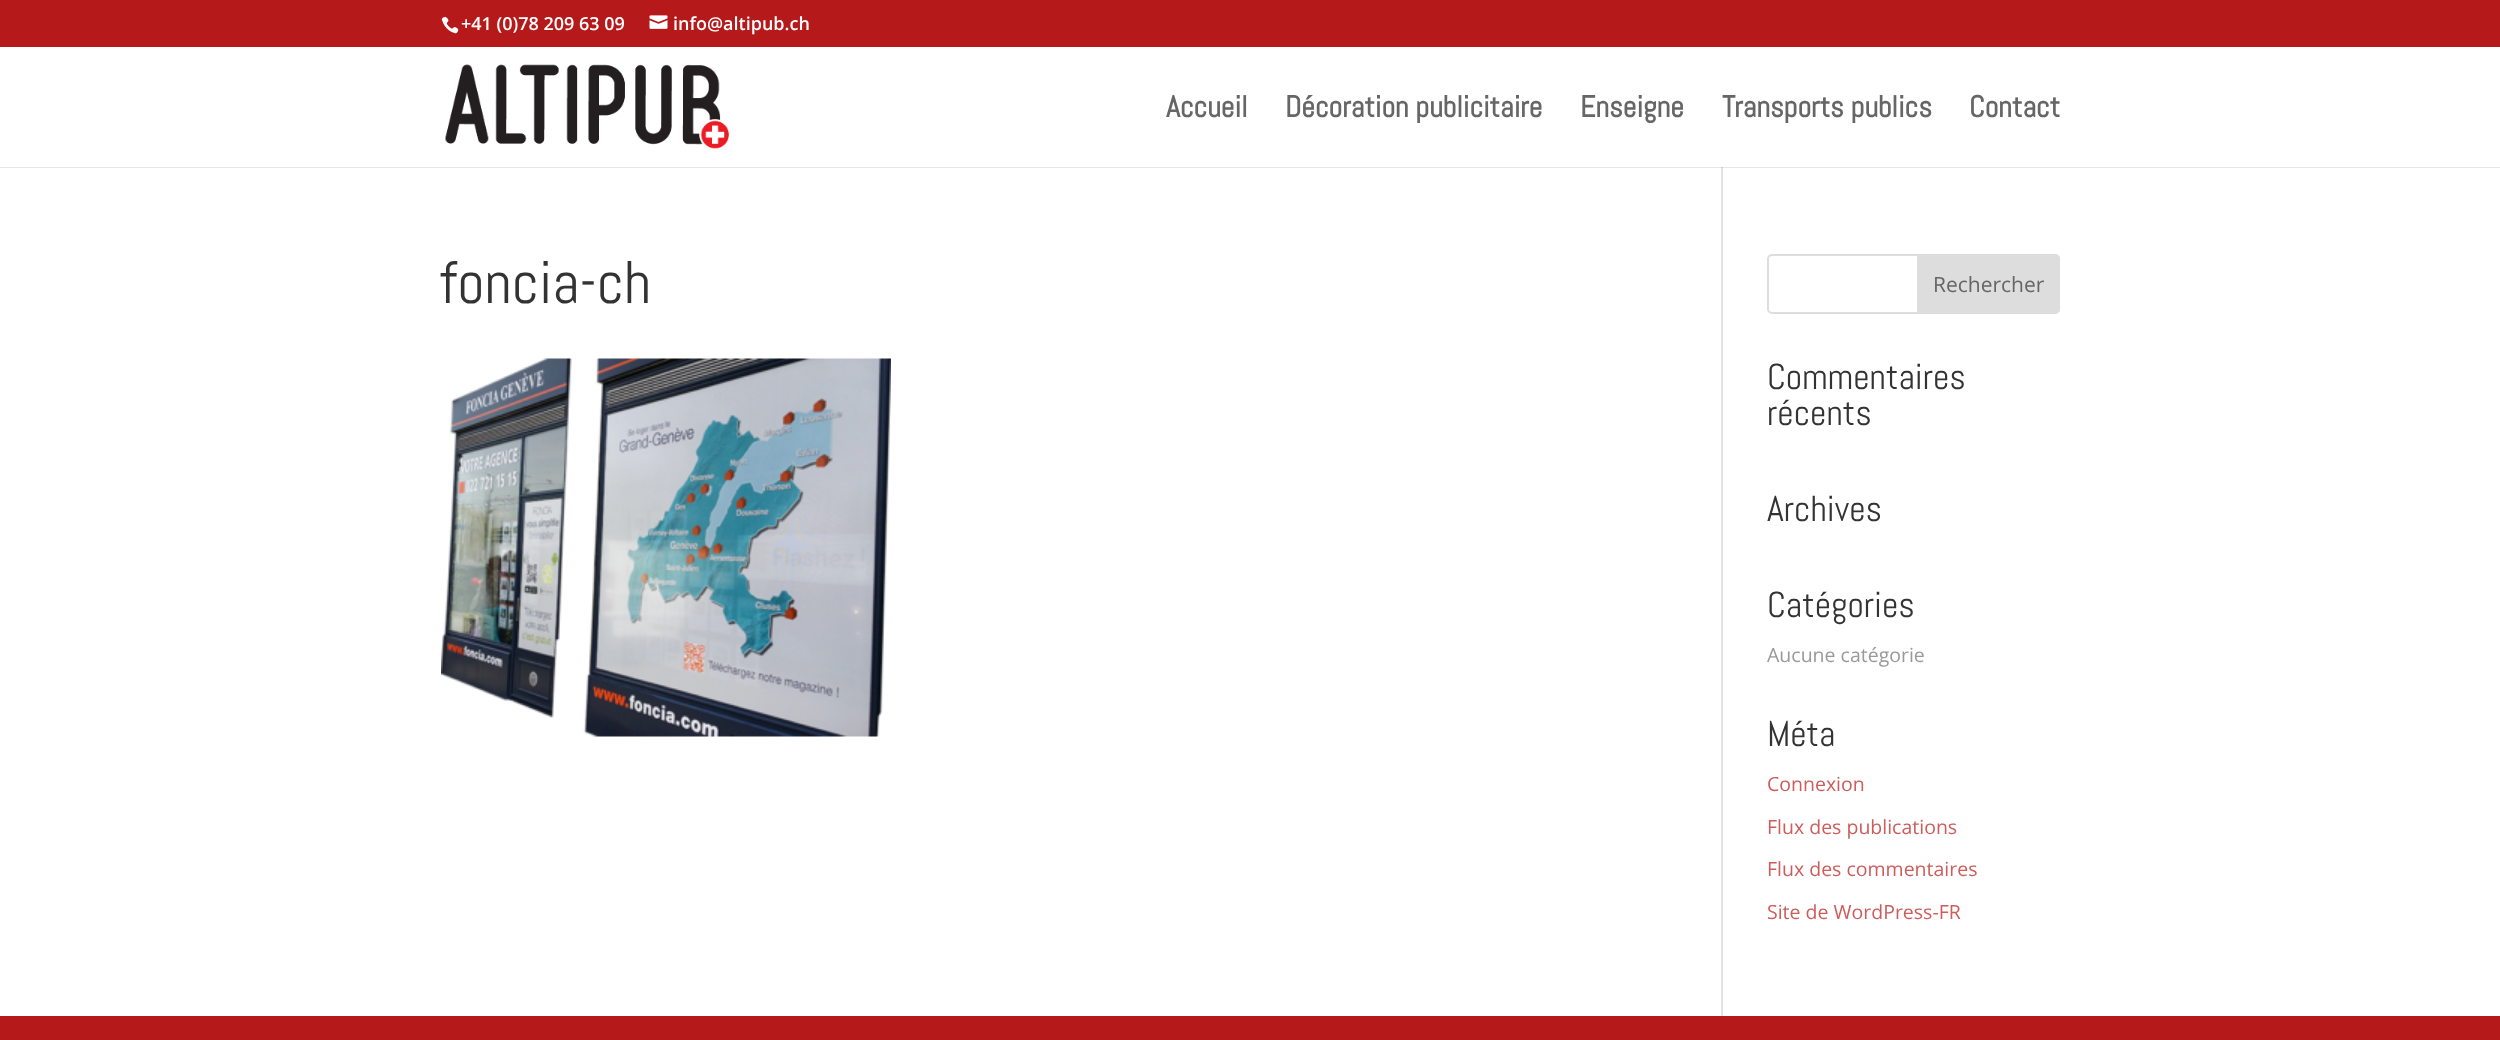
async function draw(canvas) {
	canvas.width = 2500;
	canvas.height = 1040;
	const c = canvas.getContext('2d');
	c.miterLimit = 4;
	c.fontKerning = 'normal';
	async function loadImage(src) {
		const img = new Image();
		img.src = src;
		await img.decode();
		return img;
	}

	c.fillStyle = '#fff';
	c.fillRect(0, 0, 2500, 1040);
	c.fillStyle = '#b5191a';
	c.fillRect(0, 0, 2500, 47);
	c.drawImage(await loadImage('img1.png'), 441, 16, 18, 18);
	c.font = '600 18px Open Sans';
	c.fillStyle = '#fff';
	c.fillText('+41 (0)78 209 63 09', 461, 30);
	c.drawImage(await loadImage('img2.png'), 649, 15, 19, 14);
	c.fillText('info@altipub.ch', 673, 30);
	c.fillStyle = '#e2e2e2';
	c.fillRect(1721, 167, 2, 849);
	c.fillStyle = '#0000001a';
	c.beginPath();
	c.moveTo(0, 166);
	c.lineTo(0, 168);
	c.lineTo(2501, 168);
	c.lineTo(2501, 48);
	c.lineTo(2500, 48);
	c.lineTo(2500, 166);
	c.closePath();
	c.fill();
	c.fillStyle = '#fff';
	c.fillRect(0, 166, 2500, 1);
	c.drawImage(await loadImage('img3.png'), 445, 64, 284, 85);
	c.font = 'bold 30px Abel';
	c.fillStyle = '#666';
	for (const [text, x, y] of [
		['Accueil', 1166, 117],
		['Décoration publicitaire', 1285, 117],
		['Enseigne', 1580, 117],
		['Transports publics', 1722, 117],
		['Contact', 1969, 117],
	]) {
		c.fillText(text, x, y);
	}
	c.font = '60px Abel';
	c.fillStyle = '#333';
	c.fillText('foncia-ch', 440, 303);
	c.drawImage(await loadImage('img4.png'), 441, 358, 450, 379);
	c.beginPath();
	c.roundRect(1768, 255, 291, 58, 4);
	c.strokeStyle = '#ddd';
	c.lineWidth = 2;
	c.stroke();
	c.fillStyle = '#ddd';
	c.beginPath();
	c.roundRect(1918, 255, 141, 58, [0, 4, 4, 0]);
	c.fill();
	c.stroke();
	c.font = '21px Open Sans';
	c.fillStyle = '#666';
	c.fillText('Rechercher', 1933, 292);
	c.font = '36px Abel';
	c.fillStyle = '#333';
	for (const [text, x, y] of [
		['Commentaires', 1767, 389],
		['récents', 1767, 425],
		['Archives', 1767, 521],
		['Catégories', 1767, 617],
	]) {
		c.fillText(text, x, y);
	}
	c.font = '19.5px Open Sans';
	c.fillStyle = '#999';
	c.fillText('Aucune catégorie', 1767, 662);
	c.font = '36px Abel';
	c.fillStyle = '#333';
	c.fillText('Méta', 1767, 746);
	c.font = '19.5px Open Sans';
	c.fillStyle = '#cd5c5c';
	for (const [text, x, y] of [
		['Connexion', 1767, 791],
		['Flux des publications', 1767, 834],
		['Flux des commentaires', 1767, 876],
		['Site de WordPress-FR', 1767, 919],
	]) {
		c.fillText(text, x, y);
	}
	c.fillStyle = '#b5191a';
	c.fillRect(0, 1016, 2500, 24);
}

draw(document.querySelector('canvas'));
